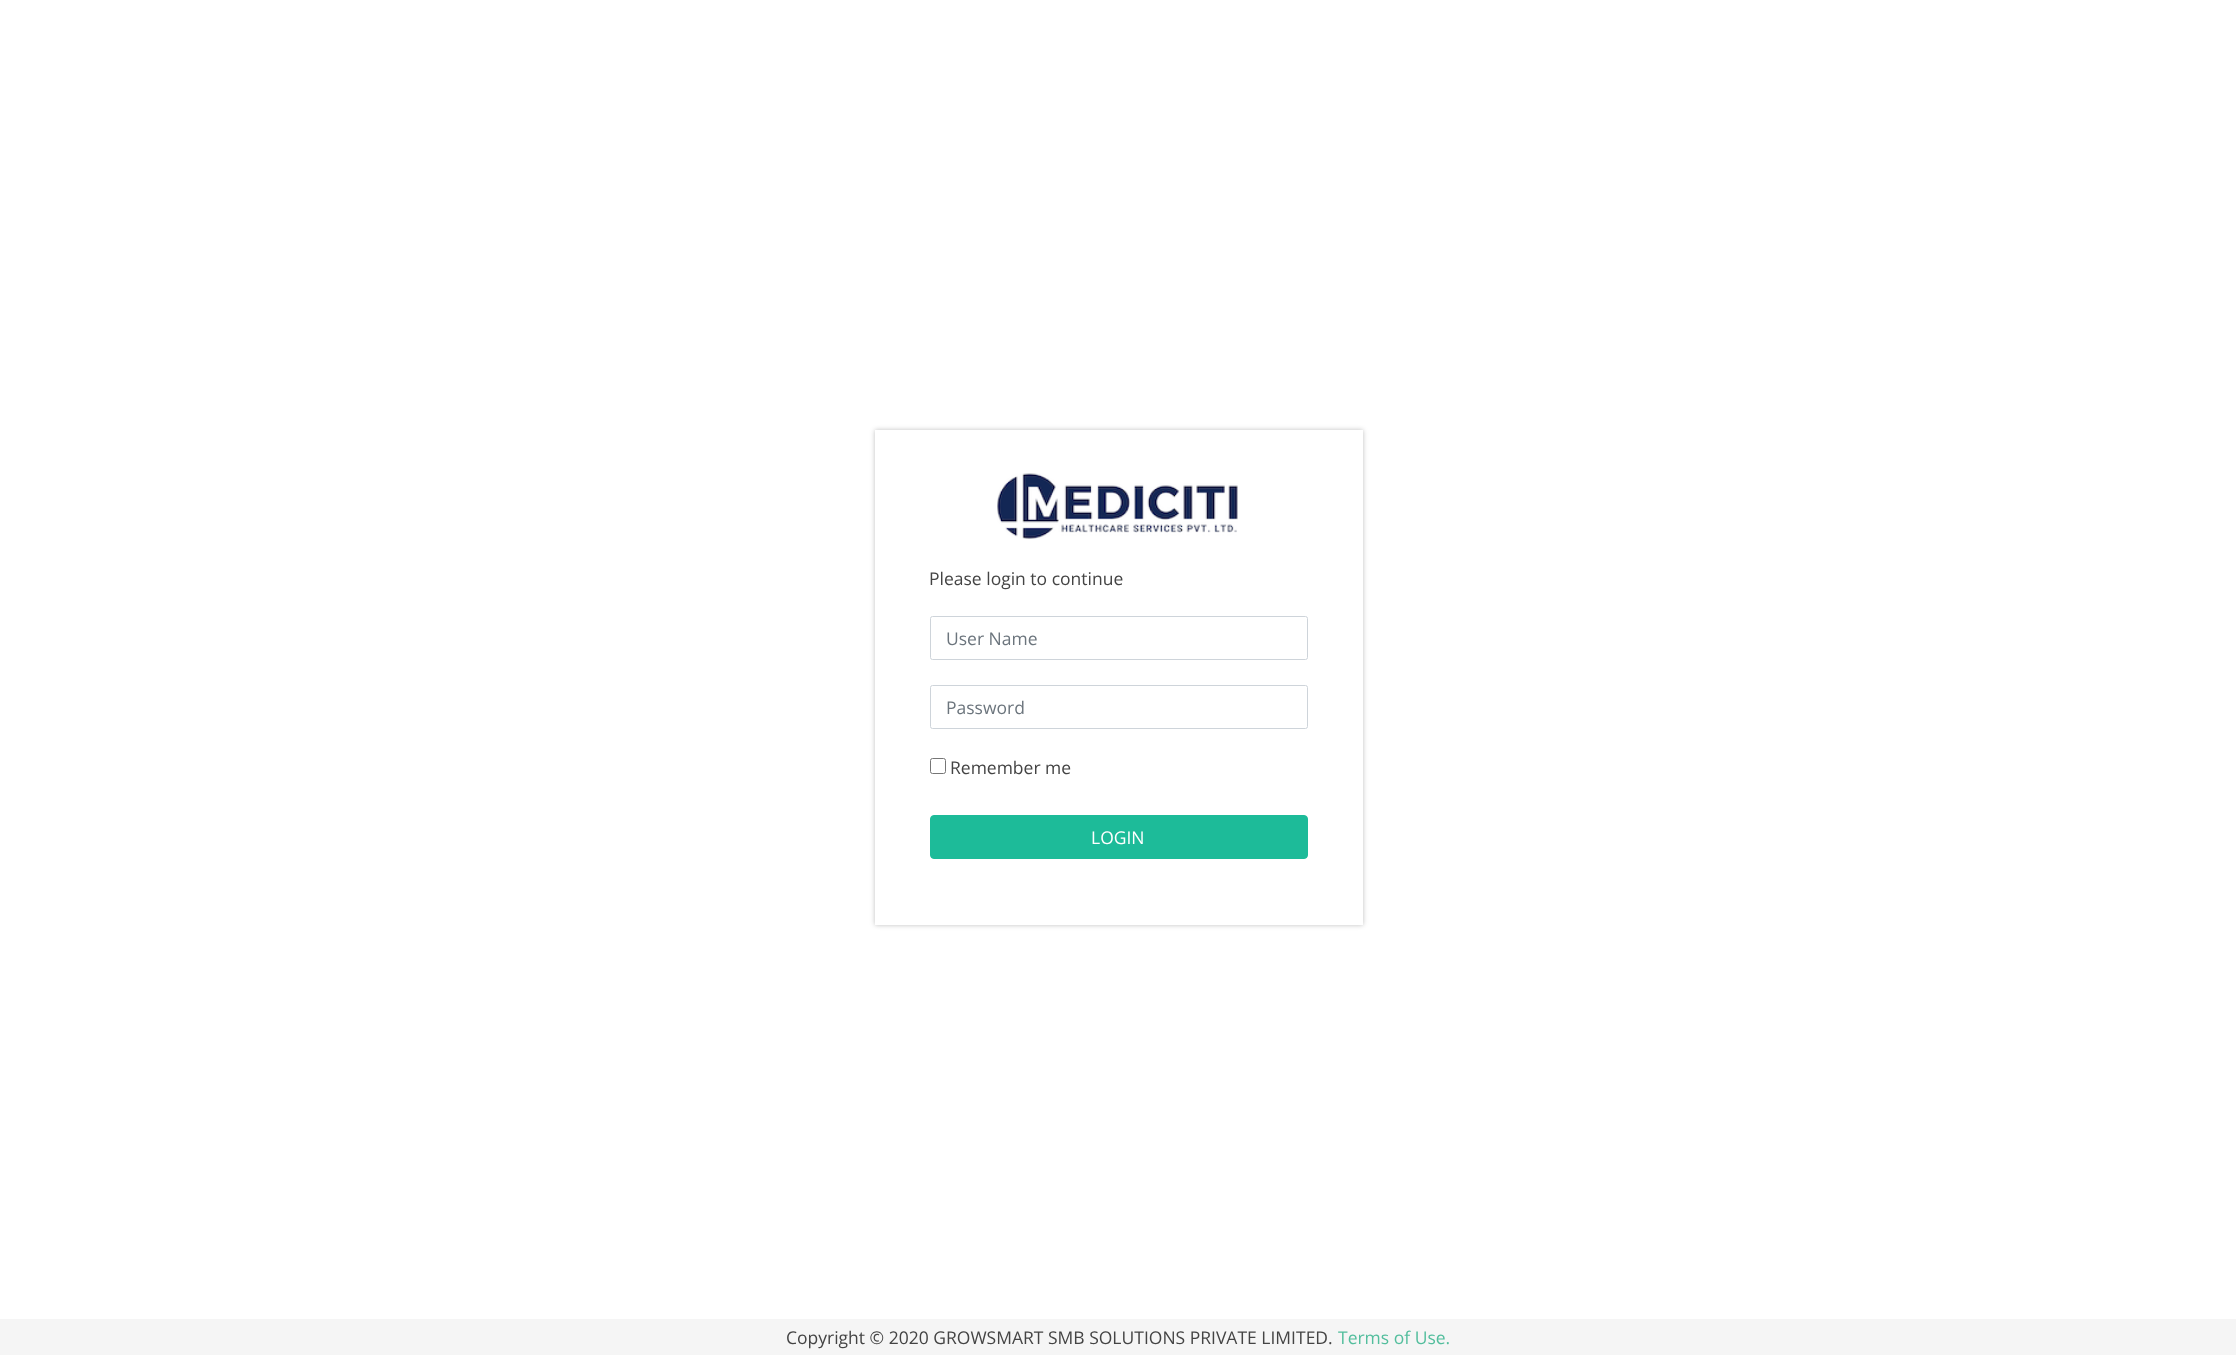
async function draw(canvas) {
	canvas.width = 2236;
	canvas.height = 1355;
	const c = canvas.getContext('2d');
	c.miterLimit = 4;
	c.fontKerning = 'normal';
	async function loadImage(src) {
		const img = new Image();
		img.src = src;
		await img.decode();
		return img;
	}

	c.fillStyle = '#fff';
	c.fillRect(0, 0, 2236, 1355);
	c.fillStyle = '#00000040';
	c.filter = 'blur(2.5px)';
	c.beginPath();
	c.rect(875, 430, 488, 495);
	c.fill();
	c.filter = 'none';
	c.fillStyle = '#fff';
	c.fillRect(875, 430, 488, 495);
	c.drawImage(await loadImage('img1.png'), 997, 473, 241, 66);
	c.font = '17.5px Open Sans';
	c.fillStyle = '#444';
	c.fillText('Please login to continue', 929, 585);
	c.beginPath();
	c.roundRect(930.5, 616.5, 377, 43, 2);
	c.strokeStyle = '#ced4da';
	c.stroke();
	c.fillStyle = '#6c757d';
	c.fillText('User Name', 946, 645);
	c.beginPath();
	c.roundRect(930.5, 685.5, 377, 43, 2);
	c.stroke();
	c.fillText('Password', 946, 714);
	c.beginPath();
	c.roundRect(930.5, 758.5, 15, 15, 2);
	c.strokeStyle = '#767676';
	c.stroke();
	c.fillStyle = '#444';
	c.fillText('Remember me', 950, 774);
	c.fillStyle = '#1dbb99';
	c.beginPath();
	c.roundRect(930.5, 815.5, 377, 43, 3.5);
	c.fill();
	c.strokeStyle = '#1dbb99';
	c.stroke();
	c.fillStyle = '#fff';
	c.fillText('LOGIN', 1091, 844);
	c.fillStyle = '#f5f5f5';
	c.fillRect(0, 1319, 2236, 36);
	c.fillStyle = '#444';
	c.fillText('Copyright © 2020 GROWSMART SMB SOLUTIONS PRIVATE LIMITED.', 786, 1344);
	c.fillStyle = '#53be9d';
	c.fillText('Terms of Use.', 1338, 1344);
}

draw(document.querySelector('canvas'));
